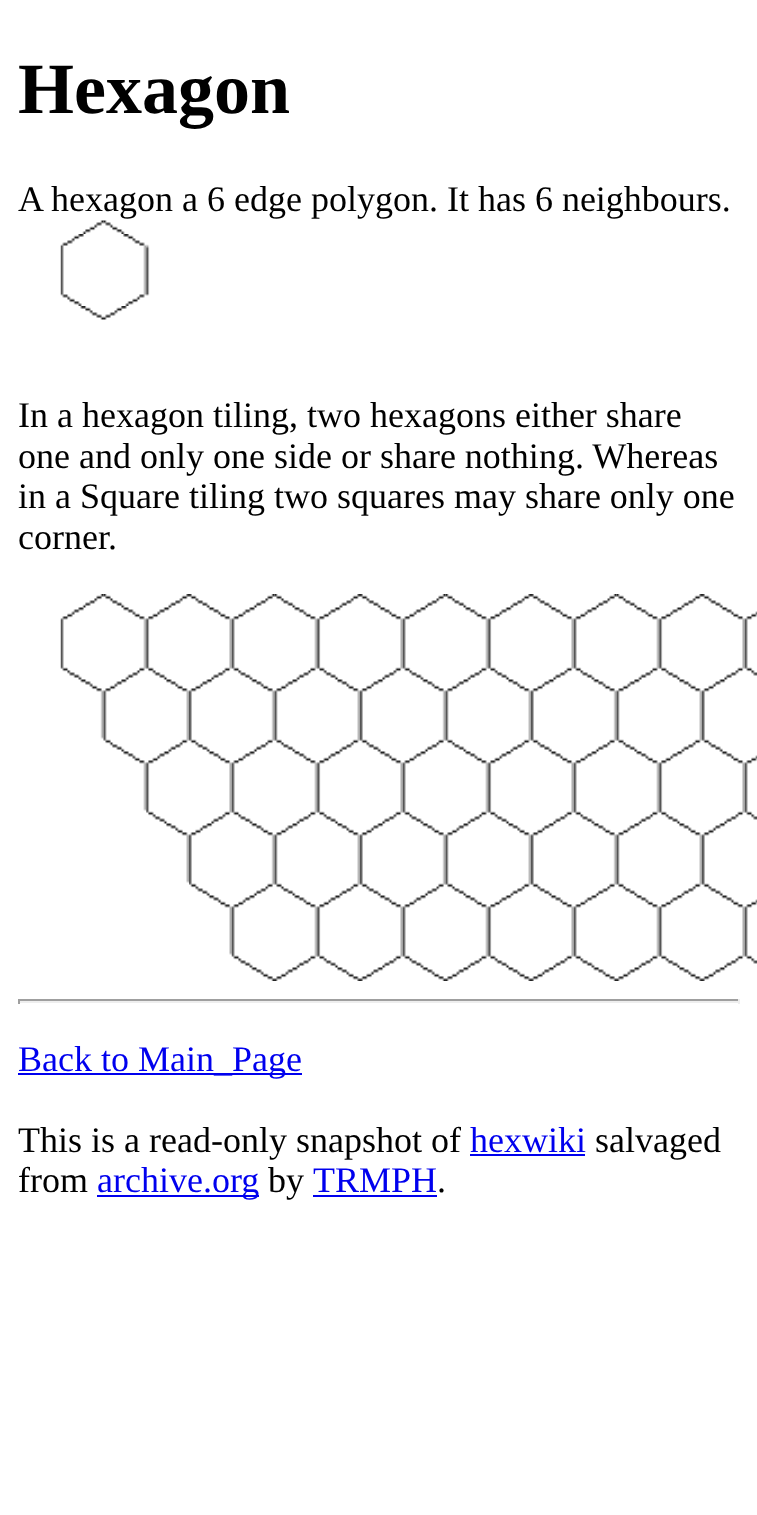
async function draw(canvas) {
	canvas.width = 757;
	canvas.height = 1515;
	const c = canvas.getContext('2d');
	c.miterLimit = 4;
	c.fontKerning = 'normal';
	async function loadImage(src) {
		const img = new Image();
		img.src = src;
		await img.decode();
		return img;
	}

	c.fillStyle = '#fff';
	c.fillRect(0, 0, 757, 1515);
	c.font = 'bold 72px Liberation Serif';
	c.fillStyle = '#000';
	c.fillText('Hexagon', 18, 113);
	c.font = '36px Liberation Serif';
	c.fillText('A hexagon a 6 edge polygon. It has 6 neighbours.', 18, 211);
	c.drawImage(await loadImage('img1.png'), 82, 220, 22, 14);
	c.drawImage(await loadImage('img2.png'), 103, 220, 22, 14);
	c.drawImage(await loadImage('img3.png'), 60, 234, 87, 72);
	c.drawImage(await loadImage('img4.png'), 146, 244, 4, 52);
	c.drawImage(await loadImage('img5.png'), 80, 306, 47, 14);
	for (const [text, x, y] of [
		['In a hexagon tiling, two hexagons either share', 18, 427],
		['one and only one side or share nothing. Whereas', 18, 468],
		['in a Square tiling two squares may share only one', 18, 508],
		['corner.', 18, 549],
	]) {
		c.fillText(text, x, y);
	}
	c.drawImage(await loadImage('img6.png'), 82, 594, 22, 14);
	c.drawImage(await loadImage('img7.png'), 103, 594, 22, 14);
	c.drawImage(await loadImage('img8.png'), 168, 594, 21, 14);
	c.drawImage(await loadImage('img9.png'), 189, 594, 21, 14);
	c.drawImage(await loadImage('img6.png'), 253, 594, 22, 14);
	c.drawImage(await loadImage('img10.png'), 274, 594, 22, 14);
	c.drawImage(await loadImage('img11.png'), 339, 594, 21, 14);
	c.drawImage(await loadImage('img9.png'), 360, 594, 21, 14);
	c.drawImage(await loadImage('img12.png'), 424, 594, 22, 14);
	c.drawImage(await loadImage('img10.png'), 445, 594, 22, 14);
	c.drawImage(await loadImage('img8.png'), 510, 594, 21, 14);
	c.drawImage(await loadImage('img13.png'), 531, 594, 21, 14);
	c.drawImage(await loadImage('img12.png'), 595, 594, 22, 14);
	c.drawImage(await loadImage('img7.png'), 616, 594, 22, 14);
	c.drawImage(await loadImage('img8.png'), 681, 594, 21, 14);
	c.drawImage(await loadImage('img9.png'), 702, 594, 21, 14);
	c.drawImage(await loadImage('img14.png'), 60, 607, 87, 73);
	c.drawImage(await loadImage('img15.png'), 146, 607, 86, 73);
	c.drawImage(await loadImage('img16.png'), 231, 607, 87, 73);
	c.drawImage(await loadImage('img17.png'), 317, 607, 86, 73);
	c.drawImage(await loadImage('img18.png'), 402, 607, 87, 73);
	c.drawImage(await loadImage('img17.png'), 488, 607, 86, 73);
	c.drawImage(await loadImage('img19.png'), 573, 607, 87, 73);
	c.drawImage(await loadImage('img15.png'), 659, 607, 86, 73);
	c.drawImage(await loadImage('img20.png'), 744, 611, 13, 65);
	c.drawImage(await loadImage('img21.png'), 80, 679, 24, 60);
	c.drawImage(await loadImage('img22.png'), 103, 679, 86, 73);
	c.drawImage(await loadImage('img23.png'), 189, 679, 86, 73);
	c.drawImage(await loadImage('img24.png'), 274, 679, 86, 73);
	c.drawImage(await loadImage('img23.png'), 360, 679, 86, 73);
	c.drawImage(await loadImage('img25.png'), 445, 679, 86, 73);
	c.drawImage(await loadImage('img26.png'), 531, 679, 86, 73);
	c.drawImage(await loadImage('img27.png'), 616, 679, 86, 73);
	c.drawImage(await loadImage('img28.png'), 702, 679, 24, 73);
	c.drawImage(await loadImage('img29.png'), 123, 751, 24, 60);
	c.drawImage(await loadImage('img30.png'), 146, 751, 86, 73);
	c.drawImage(await loadImage('img31.png'), 231, 751, 87, 73);
	c.drawImage(await loadImage('img17.png'), 317, 751, 86, 73);
	c.drawImage(await loadImage('img18.png'), 402, 751, 87, 73);
	c.drawImage(await loadImage('img17.png'), 488, 751, 86, 73);
	c.drawImage(await loadImage('img32.png'), 573, 751, 87, 73);
	c.drawImage(await loadImage('img15.png'), 659, 751, 86, 73);
	c.drawImage(await loadImage('img20.png'), 744, 755, 13, 65);
	c.drawImage(await loadImage('img33.png'), 166, 823, 23, 60);
	c.drawImage(await loadImage('img34.png'), 189, 823, 86, 73);
	c.drawImage(await loadImage('img35.png'), 274, 823, 86, 73);
	c.drawImage(await loadImage('img34.png'), 360, 823, 86, 73);
	c.drawImage(await loadImage('img36.png'), 445, 823, 86, 73);
	c.drawImage(await loadImage('img37.png'), 531, 823, 86, 73);
	c.drawImage(await loadImage('img38.png'), 616, 823, 86, 73);
	c.drawImage(await loadImage('img39.png'), 702, 823, 24, 73);
	c.drawImage(await loadImage('img40.png'), 208, 895, 24, 60);
	c.drawImage(await loadImage('img41.png'), 231, 895, 87, 73);
	c.drawImage(await loadImage('img17.png'), 317, 895, 86, 73);
	c.drawImage(await loadImage('img18.png'), 402, 895, 87, 73);
	c.drawImage(await loadImage('img17.png'), 488, 895, 86, 73);
	c.drawImage(await loadImage('img32.png'), 573, 895, 87, 73);
	c.drawImage(await loadImage('img15.png'), 659, 895, 86, 73);
	c.drawImage(await loadImage('img20.png'), 744, 899, 13, 65);
	c.drawImage(await loadImage('img42.png'), 251, 967, 47, 14);
	c.drawImage(await loadImage('img43.png'), 337, 967, 47, 14);
	c.drawImage(await loadImage('img44.png'), 422, 967, 47, 14);
	c.drawImage(await loadImage('img45.png'), 508, 967, 47, 14);
	c.drawImage(await loadImage('img44.png'), 593, 967, 47, 14);
	c.drawImage(await loadImage('img46.png'), 679, 967, 47, 14);
	for (const [x, y, w, h, color] of [
		[18, 999, 722, 2, '#9f9f9f'],
		[738, 999, 2, 5, '#eee'],
		[18, 1001, 722, 2, '#eee'],
		[18, 999, 2, 5, '#9f9f9f'],
		[18, 1073, 284, 2, '#00e'],
	]) {
		c.fillStyle = color;
		c.fillRect(x, y, w, h);
	}
	c.fillText('Back to Main_Page', 18, 1071);
	c.fillStyle = '#000';
	c.fillText('This is a read-only snapshot of', 18, 1152);
	c.fillStyle = '#00e';
	c.fillText('hexwiki', 470, 1152);
	c.fillRect(470, 1154, 115, 2);
	c.fillStyle = '#000';
	c.fillText('salvaged', 595, 1152);
	c.fillText('from', 18, 1192);
	c.fillStyle = '#00e';
	c.fillRect(97, 1195, 162, 2);
	c.fillText('archive.org', 97, 1192);
	c.fillStyle = '#000';
	c.fillText('by', 268, 1192);
	c.fillStyle = '#00e';
	c.fillText('TRMPH', 313, 1192);
	c.fillRect(313, 1195, 124, 2);
	c.fillStyle = '#000';
	c.fillText('.', 437, 1192);
}

draw(document.querySelector('canvas'));
